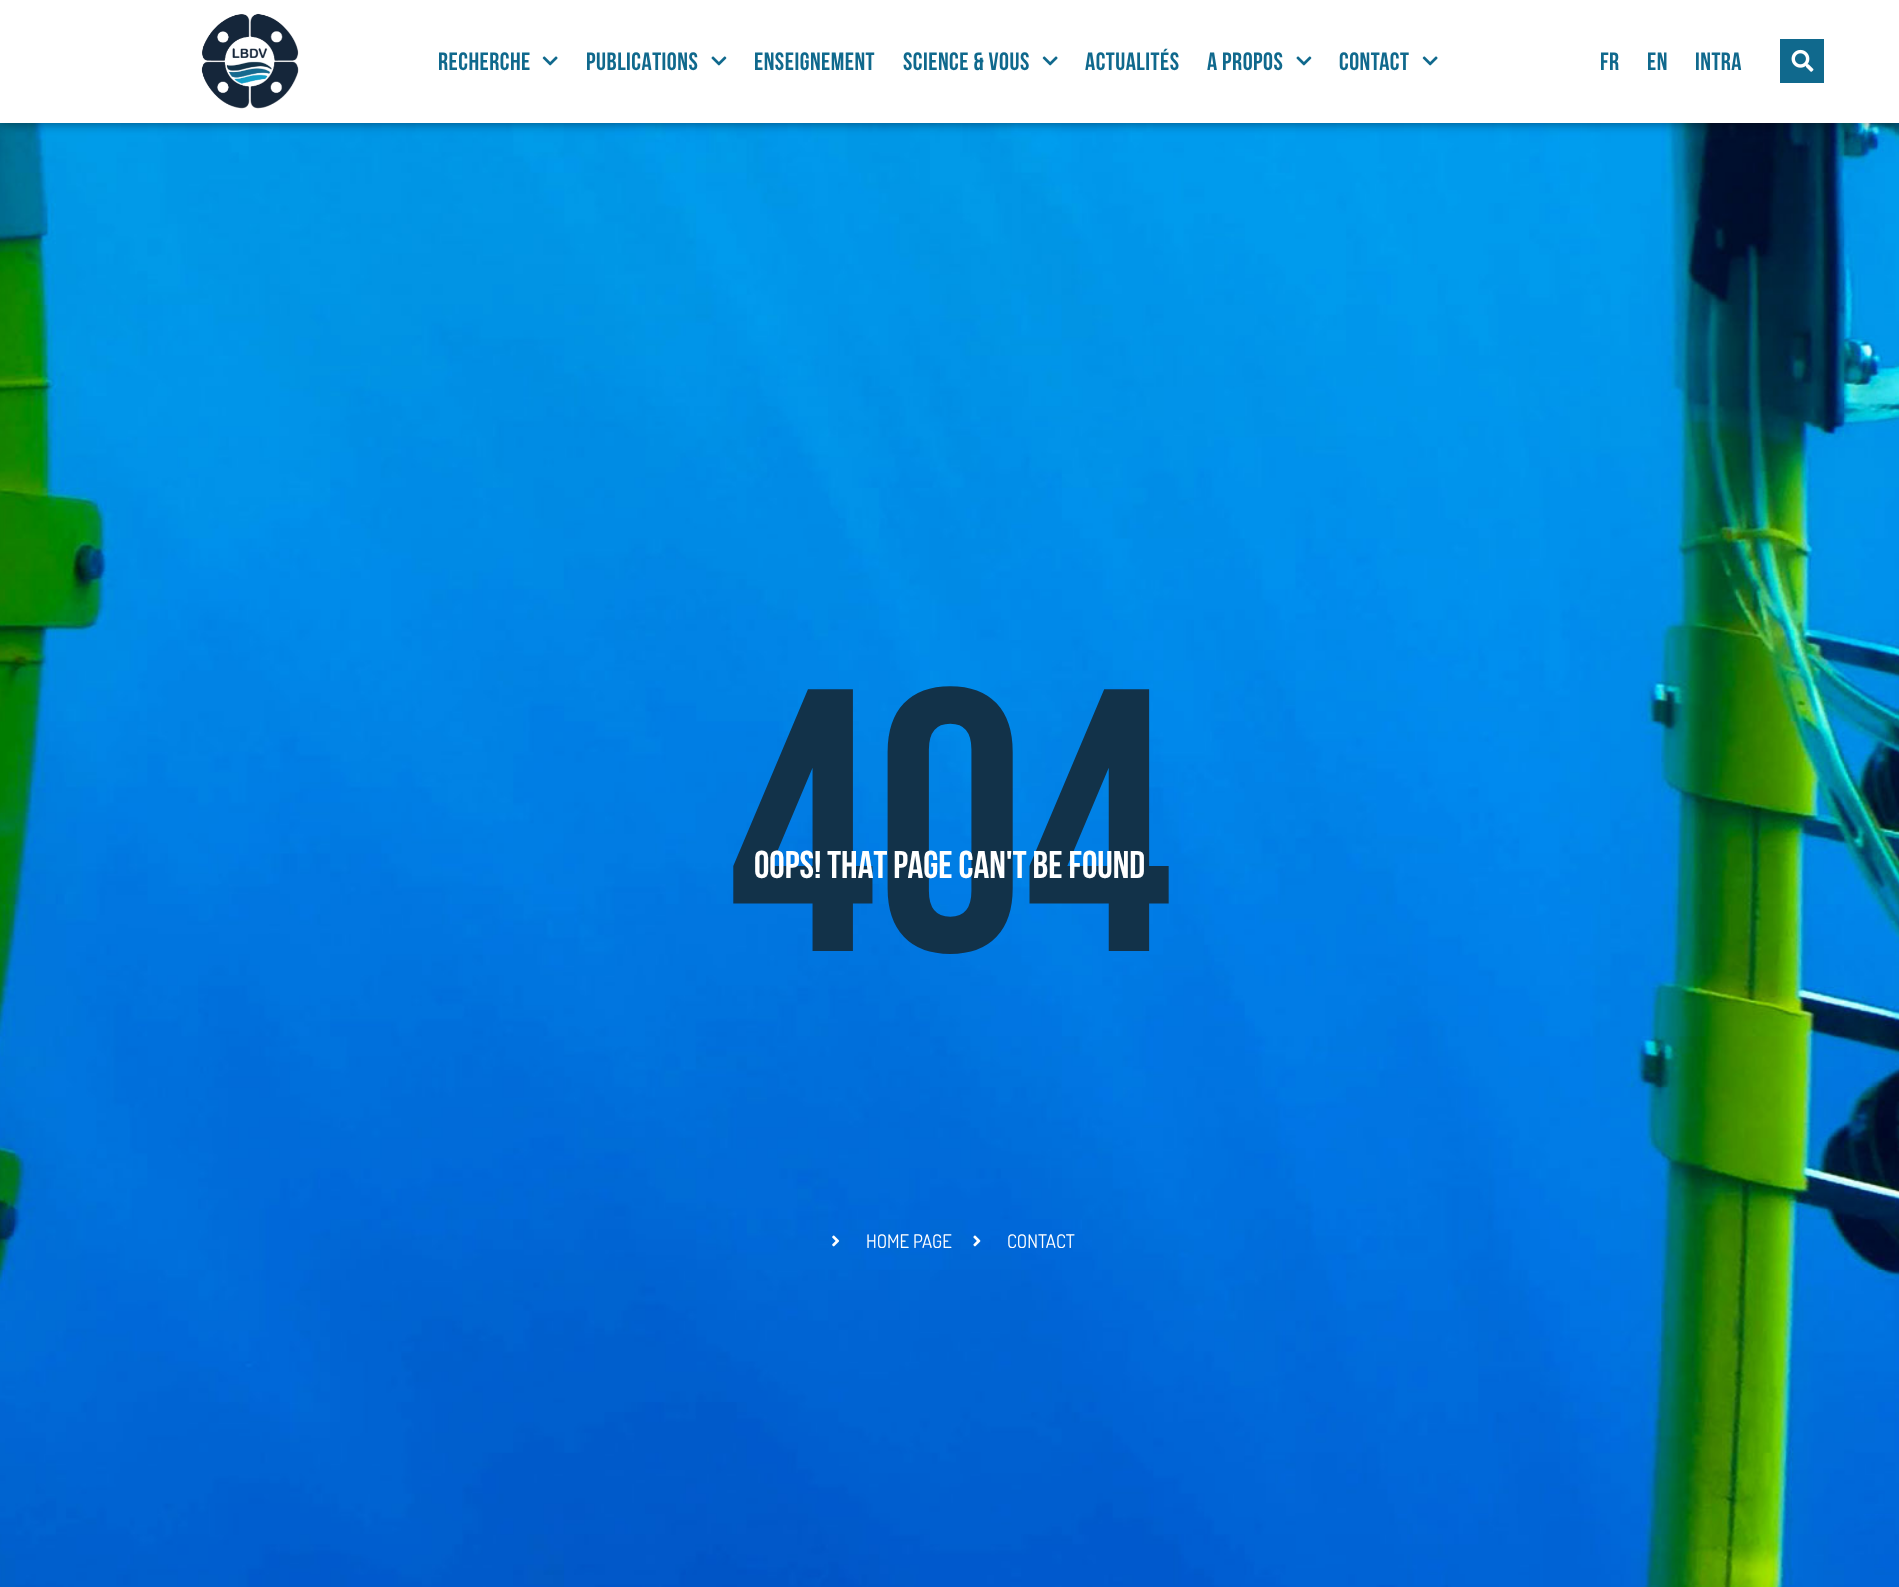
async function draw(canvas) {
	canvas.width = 1899;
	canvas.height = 1587;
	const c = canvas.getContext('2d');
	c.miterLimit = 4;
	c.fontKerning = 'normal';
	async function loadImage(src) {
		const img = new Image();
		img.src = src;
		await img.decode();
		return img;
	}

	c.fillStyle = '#fff';
	c.fillRect(0, 0, 1899, 1587);
	c.drawImage(await loadImage('img5.png'), 0, 123, 1899, 1464);
	c.fillStyle = '#00000080';
	c.filter = 'blur(6px)';
	c.beginPath();
	c.rect(0, 0, 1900, 123);
	c.fill();
	c.filter = 'none';
	c.fillStyle = '#fff';
	c.fillRect(0, 0, 1899, 123);
	c.drawImage(await loadImage('img1.png'), 201, 13, 98, 96);
	c.letterSpacing = '0.5px';
	c.font = 'bold 25px Bebas Neue';
	c.fillStyle = '#10698d';
	c.fillText('RECHERCHE', 438, 70);
	c.drawImage(await loadImage('img2.png'), 542, 56, 16, 10);
	c.fillText('PUBLICATIONS', 586, 70);
	c.drawImage(await loadImage('img3.png'), 711, 56, 16, 10);
	c.fillText('ENSEIGNEMENT', 754, 70);
	c.fillText('SCIENCE & VOUS', 903, 70);
	c.drawImage(await loadImage('img2.png'), 1042, 56, 16, 10);
	c.fillText('ACTUALITÉS', 1085, 70);
	c.fillText('A PROPOS', 1207, 70);
	c.drawImage(await loadImage('img3.png'), 1296, 56, 16, 10);
	c.fillText('CONTACT', 1339, 70);
	c.drawImage(await loadImage('img2.png'), 1422, 56, 16, 10);
	for (const [text, x, y] of [
		['FR', 1600, 70],
		['EN', 1647, 70],
		['INTRA', 1695, 70],
	]) {
		c.fillText(text, x, y);
	}
	c.fillRect(1780, 39, 44, 44);
	c.drawImage(await loadImage('img4.png'), 1791, 49, 23, 23);
	c.letterSpacing = '0px';
	c.font = 'bold 374px Bebas Neue';
	c.fillStyle = '#123249';
	c.fillText('404', 728, 951);
	c.font = 'bold 38.75px Bebas Neue';
	c.fillStyle = '#fff';
	c.fillText('OOPS! THAT PAGE CAN\'T BE FOUND', 754, 878);
	c.drawImage(await loadImage('img6.png'), 832, 1235, 8, 12);
	c.font = '18.75px Dosis';
	c.fillText('HOME PAGE', 866, 1248);
	c.drawImage(await loadImage('img7.png'), 973, 1235, 8, 12);
	c.fillText('CONTACT', 1007, 1248);
}

draw(document.querySelector('canvas'));
